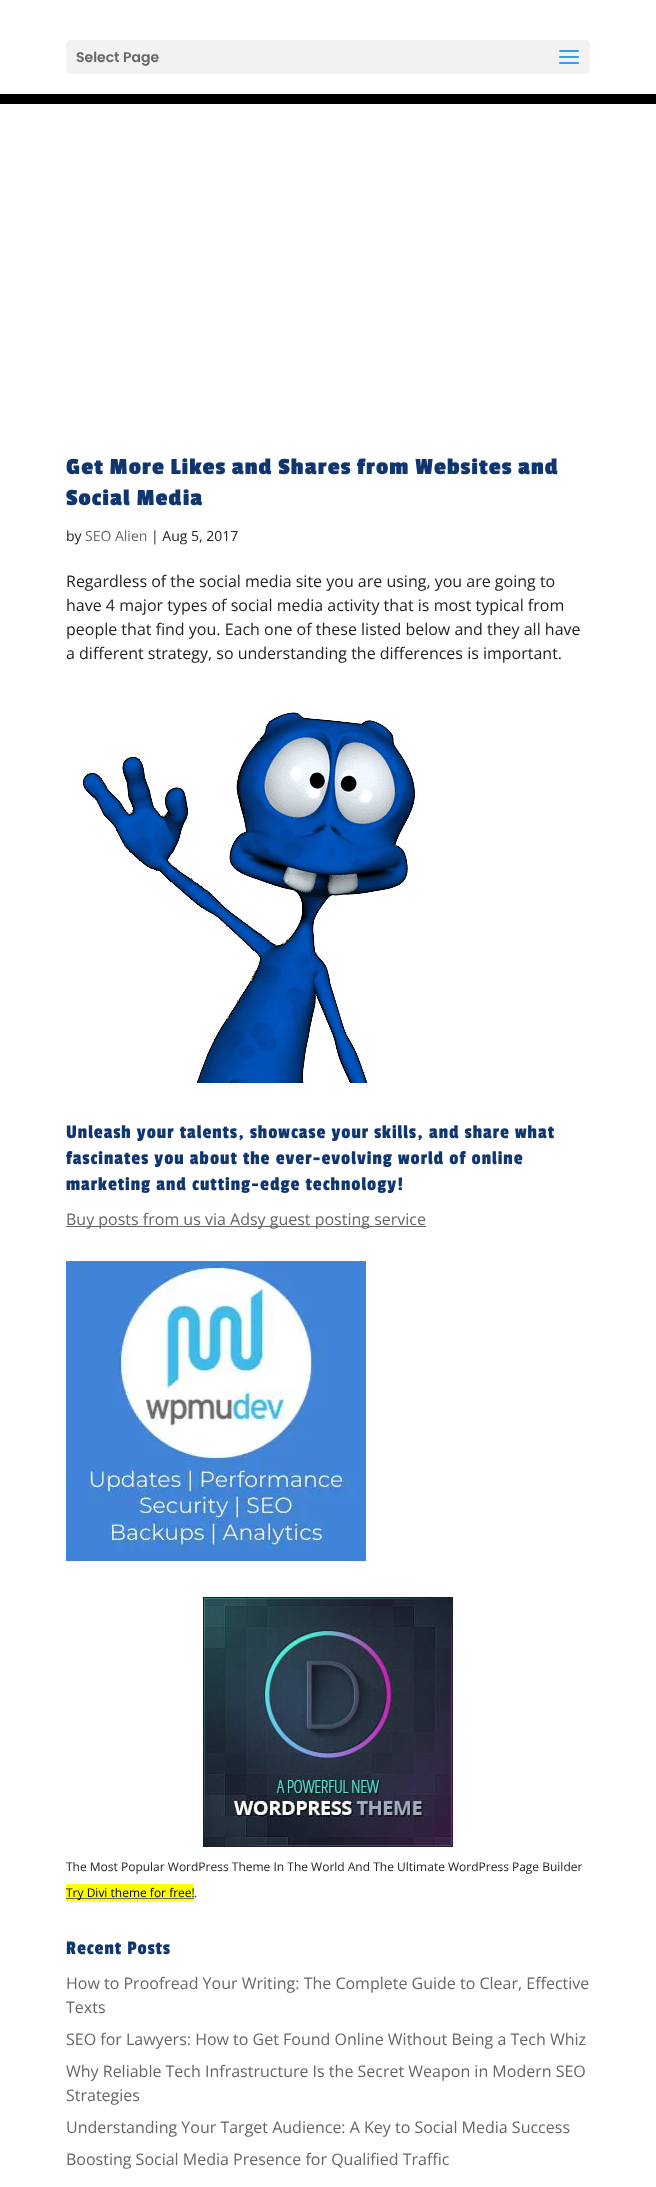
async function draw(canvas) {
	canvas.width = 656;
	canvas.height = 2187;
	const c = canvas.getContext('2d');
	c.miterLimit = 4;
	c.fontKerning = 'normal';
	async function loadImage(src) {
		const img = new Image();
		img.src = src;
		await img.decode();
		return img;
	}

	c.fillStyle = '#000';
	c.fillRect(0, 0, 656, 2187);
	c.fillStyle = '#fff';
	c.fillRect(0, 0, 656, 94);
	c.fillStyle = '#f2f2f2';
	c.beginPath();
	c.roundRect(66, 40, 524, 34, 5);
	c.fill();
	c.font = '600 14px Poppins';
	c.fillStyle = '#666';
	c.fillText('Select Page', 76, 62);
	c.drawImage(await loadImage('img1.png'), 559, 50, 20, 14);
	c.fillStyle = '#fff';
	c.fillRect(0, 104, 656, 2083);
	c.letterSpacing = '1px';
	c.font = 'bold 24px Passion One';
	c.fillStyle = '#103670';
	c.fillText('Get More Likes and Shares from Websites and', 66, 474);
	c.fillText('Social Media', 66, 505);
	c.letterSpacing = '0px';
	c.font = '14px Open Sans';
	c.fillStyle = '#232323';
	c.fillText('by', 66, 541);
	c.fillStyle = '#666';
	c.fillText('SEO Alien', 85, 541);
	c.fillStyle = '#232323';
	c.fillText('| Aug 5, 2017', 151, 541);
	c.font = '16px Open Sans';
	for (const [text, x, y] of [
		['Regardless of the social media site you are using, you are going to', 66, 587],
		['have 4 major types of social media activity that is most typical from', 66, 611],
		['people that find you. Each one of these listed below and they all have', 66, 635],
		['a different strategy, so understanding the differences is important.', 66, 659],
	]) {
		c.fillText(text, x, y);
	}
	c.drawImage(await loadImage('img2.png'), 81, 709, 336, 374);
	c.letterSpacing = '1px';
	c.font = '20px Passion One';
	c.fillStyle = '#103670';
	for (const [text, x, y] of [
		['Unleash your talents, showcase your skills, and share what', 66, 1138],
		['fascinates you about the ever-evolving world of online', 66, 1164],
		['marketing and cutting-edge technology!', 66, 1190],
	]) {
		c.fillText(text, x, y);
	}
	c.fillStyle = '#666';
	c.fillRect(66, 1226, 360, 1);
	c.letterSpacing = '0px';
	c.font = '16px Open Sans';
	c.fillText('Buy posts from us via Adsy guest posting service', 66, 1225);
	c.drawImage(await loadImage('img3.png'), 66, 1261, 300, 300);
	c.drawImage(await loadImage('img4.png'), 203, 1597, 250, 250);
	c.font = '12px Open Sans';
	c.fillStyle = '#232323';
	c.fillText('The Most Popular WordPress Theme In The World And The Ultimate WordPress Page Builder', 66, 1871);
	c.fillStyle = '#ff0';
	c.fillRect(66, 1884, 128, 17);
	c.fillStyle = '#666';
	c.fillRect(66, 1898, 128, 1);
	c.fillStyle = '#000';
	c.fillText('Try Divi theme for free!', 66, 1897);
	c.fillStyle = '#232323';
	c.fillText('.', 194, 1897);
	c.letterSpacing = '1px';
	c.font = '20px Passion One';
	c.fillStyle = '#103670';
	c.fillText('Recent Posts', 66, 1954);
	c.letterSpacing = '0px';
	c.font = '16px Open Sans';
	c.fillStyle = '#666';
	for (const [text, x, y] of [
		['How to Proofread Your Writing: The Complete Guide to Clear, Effective', 66, 1989],
		['Texts', 66, 2013],
		['SEO for Lawyers: How to Get Found Online Without Being a Tech Whiz', 66, 2045],
		['Why Reliable Tech Infrastructure Is the Secret Weapon in Modern SEO', 66, 2077],
		['Strategies', 66, 2101],
		['Understanding Your Target Audience: A Key to Social Media Success', 66, 2133],
		['Boosting Social Media Presence for Qualified Traffic', 66, 2165],
	]) {
		c.fillText(text, x, y);
	}
}

draw(document.querySelector('canvas'));
